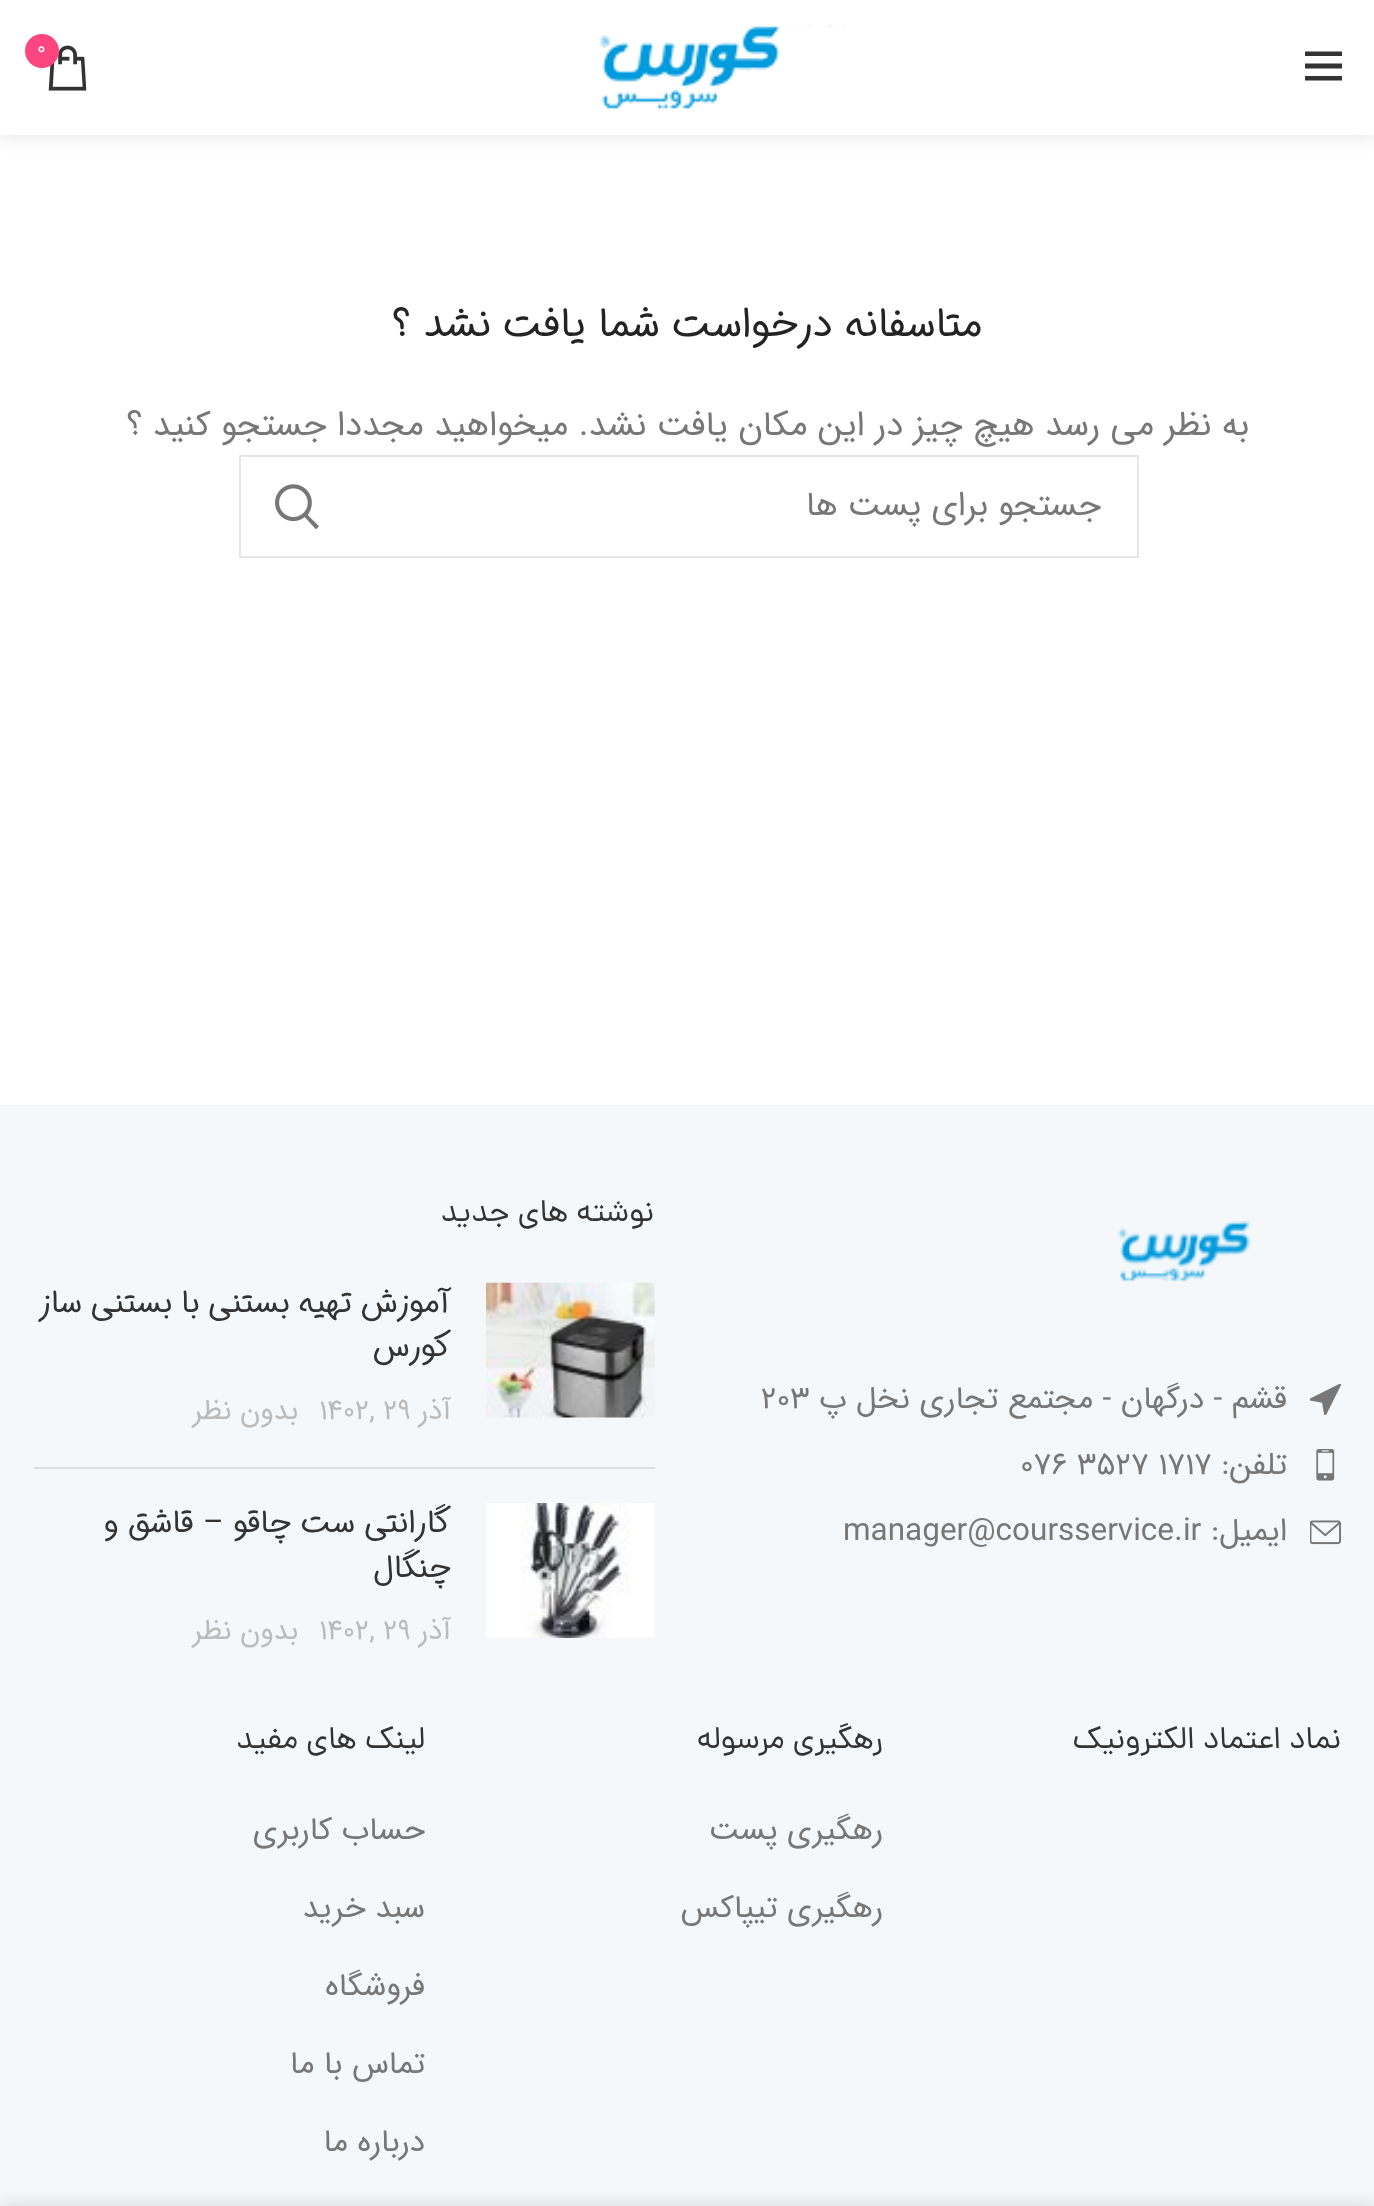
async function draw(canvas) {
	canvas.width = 1374;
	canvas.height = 2206;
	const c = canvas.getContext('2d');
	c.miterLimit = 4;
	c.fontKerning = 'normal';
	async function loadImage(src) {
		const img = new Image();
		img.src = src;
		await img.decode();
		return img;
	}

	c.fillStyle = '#fff';
	c.fillRect(0, 0, 1374, 2206);
	c.fillStyle = '#0000001a';
	c.filter = 'blur(9px)';
	c.beginPath();
	c.rect(0, 2, 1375, 135);
	c.fill();
	c.filter = 'none';
	c.fillStyle = '#fff';
	c.fillRect(0, 0, 1374, 135);
	c.drawImage(await loadImage('img1.png'), 599, 24, 246, 85);
	c.drawImage(await loadImage('img2.png'), 48, 45, 39, 46);
	c.fillStyle = '#fd4680';
	c.beginPath();
	c.arc(42, 51, 17, 0, 2 * Math.PI);
	c.fill();
	c.font = '20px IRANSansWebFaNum';
	c.fillStyle = '#fff';
	c.fillText('0', 37, 54);
	c.fillStyle = '#333';
	c.beginPath();
	c.moveTo(1305, 51.5);
	c.lineTo(1342, 51.5);
	c.lineTo(1342, 56);
	c.lineTo(1305, 56);
	c.closePath();
	c.moveTo(1305, 63.5);
	c.lineTo(1342, 63.5);
	c.lineTo(1342, 68.5);
	c.lineTo(1305, 68.5);
	c.closePath();
	c.moveTo(1305, 76);
	c.lineTo(1342, 76);
	c.lineTo(1342, 80.5);
	c.lineTo(1305, 80.5);
	c.closePath();
	c.fill();
	c.direction = 'rtl';
	c.font = '40.5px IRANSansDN';
	c.fillStyle = '#242424';
	c.fillText('متاسفانه درخواست شما یافت نشد ؟', 982, 336);
	c.font = '34.65px IRANSansWebFaNum';
	c.fillStyle = '#777';
	c.fillText('به نظر می رسد هیچ چیز در این مکان یافت نشد. میخواهید مجددا جستجو کنید ؟', 1249, 435);
	c.strokeStyle = '#e6e6e6';
	c.lineWidth = 2;
	c.strokeRect(240, 456, 898, 101);
	c.font = '33.75px IRANSansWebFaNum';
	c.fillText('جستجو برای پست ها', 1101, 515);
	c.drawImage(await loadImage('img3.png'), 275, 484, 44, 46);
	c.fillStyle = '#f4f8fb';
	c.fillRect(0, 1105, 1374, 1101);
	c.drawImage(await loadImage('img4.png'), 1117, 1221, 134, 61);
	c.drawImage(await loadImage('img5.png'), 1310, 1384, 31, 31);
	c.font = '31.5px IRANSansWebFaNum';
	c.fillStyle = '#777';
	c.fillText('قشم - درگهان - مجتمع تجاری نخل پ', 1287, 1408);
	c.direction = 'ltr';
	c.fillText('203', 761, 1408);
	c.drawImage(await loadImage('img6.png'), 1316, 1449, 19, 32);
	c.direction = 'rtl';
	c.fillText('تلفن:', 1287, 1474);
	c.direction = 'ltr';
	c.fillText('076 3527 1717', 1020, 1474);
	c.drawImage(await loadImage('img7.png'), 1310, 1520, 31, 25);
	c.direction = 'rtl';
	c.fillText('ایمیل:', 1287, 1540);
	c.direction = 'ltr';
	c.fillText('manager@coursservice.ir', 843, 1540);
	c.direction = 'rtl';
	c.font = '31.5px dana';
	c.fillStyle = '#333';
	c.fillText('نوشته های جدید', 654, 1221);
	c.fillStyle = '#dbdee1';
	c.fillRect(34, 1467, 621, 2);
	c.drawImage(await loadImage('img8.png'), 486, 1282, 169, 136);
	c.wordSpacing = '-0.5px';
	c.font = '31.5px IRANSansDN';
	c.fillStyle = '#333';
	c.fillText('آموزش تهیه بستنی با بستنی ساز', 451, 1312);
	c.wordSpacing = '0px';
	c.fillText('کورس', 451, 1356);
	c.font = '28.5px IRANSansWebFaNum';
	c.fillStyle = '#bbb';
	c.fillText('آذر', 451, 1419);
	c.direction = 'ltr';
	c.fillText('1402, 29', 319, 1419);
	c.direction = 'rtl';
	c.fillText('بدون نظر', 298, 1419);
	c.drawImage(await loadImage('img9.png'), 486, 1503, 169, 135);
	c.font = '31.5px IRANSansDN';
	c.fillStyle = '#333';
	c.fillText('گارانتی ست چاقو – قاشق و', 451, 1532);
	c.fillText('چنگال', 451, 1577);
	c.font = '28.5px IRANSansWebFaNum';
	c.fillStyle = '#bbb';
	c.fillText('آذر', 451, 1639);
	c.direction = 'ltr';
	c.fillText('1402, 29', 319, 1639);
	c.direction = 'rtl';
	c.fillText('بدون نظر', 298, 1639);
	c.font = '31.5px dana';
	c.fillStyle = '#333';
	c.fillText('نماد اعتماد الکترونیک', 1341, 1748);
	c.fillText('رهگیری مرسوله', 883, 1748);
	c.font = '31.5px IRANSansWebFaNum';
	c.fillStyle = '#777';
	c.fillText('رهگیری پست', 883, 1839);
	c.fillText('رهگیری تیپاکس', 883, 1917);
	c.font = '31.5px dana';
	c.fillStyle = '#333';
	c.fillText('لینک های مفید', 425, 1748);
	c.font = '31.5px IRANSansWebFaNum';
	c.fillStyle = '#777';
	for (const [text, x, y] of [
		['حساب کاربری', 425, 1839],
		['سبد خرید', 425, 1917],
		['فروشگاه', 425, 1995],
		['تماس با ما', 425, 2073],
		['درباره ما', 425, 2151],
	]) {
		c.fillText(text, x, y);
	}
	c.fillStyle = '#00000024';
	c.filter = 'blur(10px)';
	c.beginPath();
	c.rect(0, 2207, 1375, 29);
	c.fill();
	c.filter = 'none';
}

draw(document.querySelector('canvas'));
